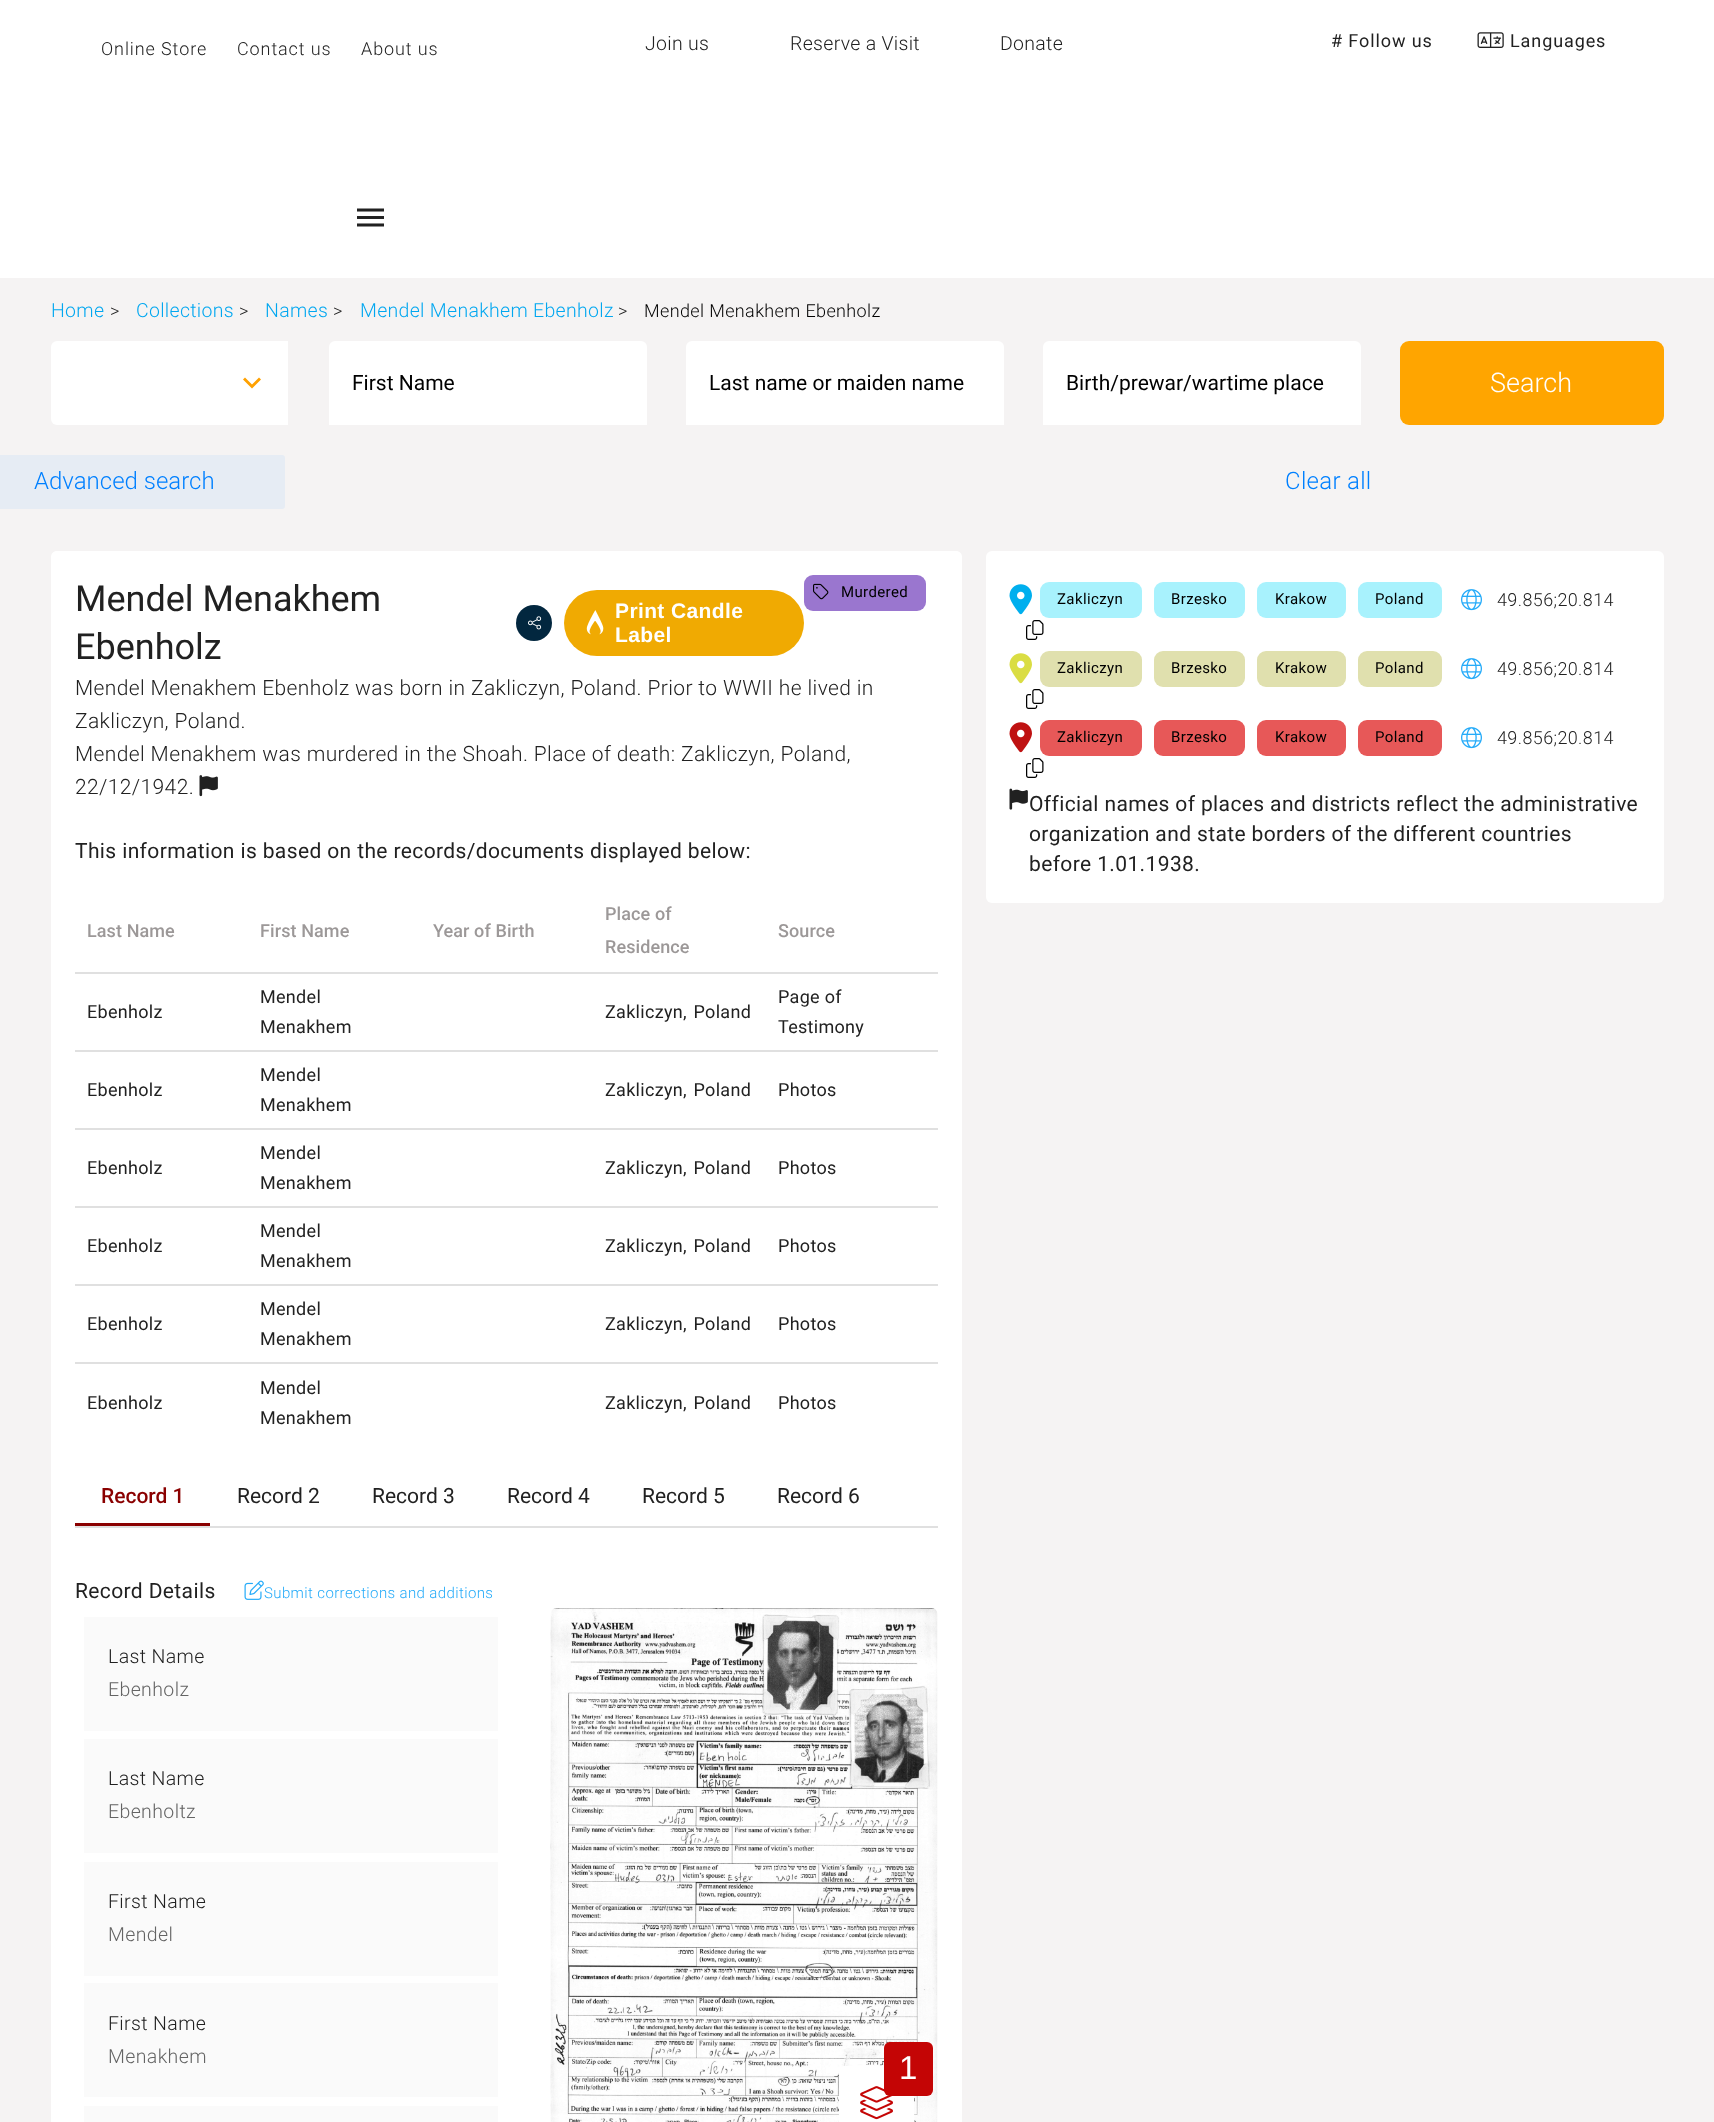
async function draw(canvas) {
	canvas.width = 1714;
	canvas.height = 2122;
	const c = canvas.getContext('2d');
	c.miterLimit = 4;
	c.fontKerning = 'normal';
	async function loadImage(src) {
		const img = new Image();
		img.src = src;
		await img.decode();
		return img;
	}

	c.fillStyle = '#f5f3f3';
	c.fillRect(0, 0, 1714, 2122);
	c.fillStyle = '#fff';
	c.fillRect(0, 0, 1714, 278);
	c.letterSpacing = '0.9px';
	c.font = '300 18px Roboto';
	c.fillStyle = '#212121';
	for (const [text, x, y] of [
		['Online Store', 101, 55],
		['Contact us', 237, 55],
		['About us', 361, 55],
	]) {
		c.fillText(text, x, y);
	}
	c.letterSpacing = '0.3px';
	c.font = '300 19.5px Roboto';
	for (const [text, x, y] of [
		['Join us', 645, 50],
		['Reserve a Visit', 790, 50],
		['Donate', 1000, 50],
	]) {
		c.fillText(text, x, y);
	}
	c.letterSpacing = '0.9px';
	c.font = '18px Roboto';
	c.fillText('# Follow us', 1331, 47);
	c.drawImage(await loadImage('img1.png'), 1477, 32, 27, 16);
	c.fillText('Languages', 1510, 47);
	c.drawImage(await loadImage('img2.png'), 357, 208, 27, 19);
	c.letterSpacing = '0.3px';
	c.font = '300 19.5px Roboto';
	c.fillStyle = '#02a7f0';
	c.fillText('Home', 51, 317);
	c.letterSpacing = '0.38px';
	c.font = '300 18px "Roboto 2"';
	c.fillStyle = '#212121';
	c.fillText('>', 110, 317);
	c.letterSpacing = '0.3px';
	c.font = '300 19.5px Roboto';
	c.fillStyle = '#02a7f0';
	c.fillText('Collections', 136, 317);
	c.letterSpacing = '0.38px';
	c.font = '300 18px "Roboto 2"';
	c.fillStyle = '#212121';
	c.fillText('>', 239, 317);
	c.letterSpacing = '0.3px';
	c.font = '300 19.5px Roboto';
	c.fillStyle = '#02a7f0';
	c.fillText('Names', 265, 317);
	c.letterSpacing = '0.38px';
	c.font = '300 18px "Roboto 2"';
	c.fillStyle = '#212121';
	c.fillText('>', 333, 317);
	c.letterSpacing = '0.3px';
	c.font = '300 19.5px Roboto';
	c.fillStyle = '#02a7f0';
	c.fillText('Mendel Menakhem Ebenholz', 360, 317);
	c.letterSpacing = '0.38px';
	c.font = '300 18px "Roboto 2"';
	c.fillStyle = '#212121';
	c.fillText('>', 618, 317);
	c.fillStyle = '#000';
	c.fillText('Mendel Menakhem Ebenholz', 644, 317);
	c.fillStyle = '#fff';
	c.beginPath();
	c.roundRect(51, 341, 237, 84, [6, 0, 0, 6]);
	c.fill();
	c.fillStyle = '#ffa101';
	c.beginPath();
	c.moveTo(245, 377.5);
	c.lineTo(252, 384.5);
	c.lineTo(259, 377.5);
	c.lineTo(261, 379.5);
	c.lineTo(252, 388.5);
	c.lineTo(243, 379.5);
	c.closePath();
	c.fill();
	c.fillStyle = '#fff';
	c.beginPath();
	c.roundRect(329, 341, 318, 84, [6, 6, 0, 0]);
	c.fill();
	c.letterSpacing = '0px';
	c.font = '21px Roboto';
	c.fillStyle = '#000';
	c.fillText('First Name', 352, 390);
	c.fillStyle = '#fff';
	c.beginPath();
	c.roundRect(686, 341, 318, 84, [6, 6, 0, 0]);
	c.fill();
	c.fillStyle = '#000';
	c.fillText('Last name or maiden name', 709, 390);
	c.fillStyle = '#fff';
	c.beginPath();
	c.roundRect(1043, 341, 318, 84, [6, 6, 0, 0]);
	c.fill();
	c.fillStyle = '#000';
	c.fillText('Birth/prewar/wartime place', 1066, 390);
	c.fillStyle = '#ffa500';
	c.beginPath();
	c.roundRect(1400, 341, 264, 84, 9);
	c.fill();
	c.font = '300 27px Roboto';
	c.fillStyle = '#fff';
	c.fillText('Search', 1490, 392);
	c.fillStyle = '#e6ecf4';
	c.beginPath();
	c.roundRect(0, 455, 285, 54, [0, 3, 3, 0]);
	c.fill();
	c.font = '300 24px Roboto';
	c.fillStyle = '#0080ff';
	c.fillText('Advanced search', 34, 489);
	c.letterSpacing = '0.3px';
	c.fillText('Clear all', 1285, 489);
	c.fillStyle = '#fff';
	c.beginPath();
	c.moveTo(57, 551);
	c.lineTo(956, 551);
	c.bezierCurveTo(959.5, 551, 962, 553.5, 962, 557);
	c.lineTo(962, 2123);
	c.lineTo(51, 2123);
	c.lineTo(51, 557);
	c.bezierCurveTo(51, 553.5, 53.5, 551, 57, 551);
	c.closePath();
	c.fill();
	c.letterSpacing = '0px';
	c.font = '36px Roboto';
	c.fillStyle = '#212121';
	c.fillText('Mendel Menakhem', 75, 611);
	c.fillText('Ebenholz', 75, 659);
	c.fillStyle = '#02273f';
	c.beginPath();
	c.arc(534, 623, 18, 0, 2 * Math.PI);
	c.fill();
	c.drawImage(await loadImage('img3.png'), 528, 616, 14, 14);
	c.fillStyle = '#f0aa02';
	c.beginPath();
	c.roundRect(564, 590, 240, 66, 33);
	c.fill();
	c.drawImage(await loadImage('img4.png'), 586, 610, 18, 25);
	c.letterSpacing = '0.38px';
	c.font = 'bold 21px Liberation Sans';
	c.fillStyle = '#fff';
	c.fillText('Print Candle', 615, 618);
	c.fillText('Label', 615, 642);
	c.fillStyle = '#9a76cf';
	c.beginPath();
	c.roundRect(804, 575, 122, 36, 9);
	c.fill();
	c.drawImage(await loadImage('img5.png'), 813, 583, 16, 17);
	c.font = '15px Roboto';
	c.fillStyle = '#000';
	c.fillText('Murdered', 841, 597);
	c.font = '300 21px Roboto';
	c.fillStyle = '#212121';
	for (const [text, x, y] of [
		['Mendel Menakhem Ebenholz was born in Zakliczyn, Poland. Prior to WWII he lived in', 75, 695],
		['Zakliczyn, Poland.', 75, 728],
		['Mendel Menakhem was murdered in the Shoah. Place of death: Zakliczyn, Poland,', 75, 761],
		['22/12/1942.', 75, 794],
	]) {
		c.fillText(text, x, y);
	}
	c.drawImage(await loadImage('img6.png'), 199, 775, 19, 22);
	c.font = '21px Roboto';
	c.fillText('This information is based on the records/documents displayed below:', 75, 858);
	c.fillStyle = '#e0e0e0';
	c.fillRect(75, 972, 863, 2);
	c.letterSpacing = '0.1px';
	c.font = '500 18px Roboto';
	c.fillStyle = '#9c9898';
	for (const [text, x, y] of [
		['Last Name', 87, 937],
		['First Name', 260, 937],
		['Year of Birth', 433, 937],
		['Place of', 605, 920],
		['Residence', 605, 953],
		['Source', 778, 937],
	]) {
		c.fillText(text, x, y);
	}
	c.fillStyle = '#e0e0e0';
	c.fillRect(75, 1050, 863, 2);
	c.letterSpacing = '0.3px';
	c.font = '18px Roboto';
	c.fillStyle = '#212121';
	for (const [text, x, y] of [
		['Ebenholz', 87, 1018],
		['Mendel', 260, 1003],
		['Menakhem', 260, 1033],
	]) {
		c.fillText(text, x, y);
	}
	c.wordSpacing = '2px';
	c.fillText('Zakliczyn, Poland', 605, 1018);
	c.wordSpacing = '0px';
	c.fillText('Page of', 778, 1003);
	c.fillText('Testimony', 778, 1033);
	c.fillStyle = '#e0e0e0';
	c.fillRect(75, 1128, 863, 2);
	c.fillStyle = '#212121';
	for (const [text, x, y] of [
		['Ebenholz', 87, 1096],
		['Mendel', 260, 1081],
		['Menakhem', 260, 1111],
	]) {
		c.fillText(text, x, y);
	}
	c.wordSpacing = '2px';
	c.fillText('Zakliczyn, Poland', 605, 1096);
	c.wordSpacing = '0px';
	c.fillText('Photos', 778, 1096);
	c.fillStyle = '#e0e0e0';
	c.fillRect(75, 1206, 863, 2);
	c.fillStyle = '#212121';
	for (const [text, x, y] of [
		['Ebenholz', 87, 1174],
		['Mendel', 260, 1159],
		['Menakhem', 260, 1189],
	]) {
		c.fillText(text, x, y);
	}
	c.wordSpacing = '2px';
	c.fillText('Zakliczyn, Poland', 605, 1174);
	c.wordSpacing = '0px';
	c.fillText('Photos', 778, 1174);
	c.fillStyle = '#e0e0e0';
	c.fillRect(75, 1284, 863, 2);
	c.fillStyle = '#212121';
	for (const [text, x, y] of [
		['Ebenholz', 87, 1252],
		['Mendel', 260, 1237],
		['Menakhem', 260, 1267],
	]) {
		c.fillText(text, x, y);
	}
	c.wordSpacing = '2px';
	c.fillText('Zakliczyn, Poland', 605, 1252);
	c.wordSpacing = '0px';
	c.fillText('Photos', 778, 1252);
	c.fillStyle = '#e0e0e0';
	c.fillRect(75, 1362, 863, 2);
	c.fillStyle = '#212121';
	for (const [text, x, y] of [
		['Ebenholz', 87, 1330],
		['Mendel', 260, 1315],
		['Menakhem', 260, 1345],
	]) {
		c.fillText(text, x, y);
	}
	c.wordSpacing = '2px';
	c.fillText('Zakliczyn, Poland', 605, 1330);
	c.wordSpacing = '0px';
	for (const [text, x, y] of [
		['Photos', 778, 1330],
		['Ebenholz', 87, 1409],
		['Mendel', 260, 1394],
		['Menakhem', 260, 1424],
	]) {
		c.fillText(text, x, y);
	}
	c.wordSpacing = '2px';
	c.fillText('Zakliczyn, Poland', 605, 1409);
	c.wordSpacing = '0px';
	c.fillText('Photos', 778, 1409);
	c.fillStyle = '#e0e0e0';
	c.fillRect(75, 1526, 863, 2);
	c.letterSpacing = '0px';
	c.font = '500 21px Roboto';
	c.fillStyle = '#8a0000';
	c.fillText('Record 1', 101, 1503);
	c.fillRect(75, 1523, 135, 3);
	c.font = '21px Roboto';
	c.fillStyle = '#212121';
	for (const [text, x, y] of [
		['Record 2', 237, 1503],
		['Record 3', 372, 1503],
		['Record 4', 507, 1503],
		['Record 5', 642, 1503],
		['Record 6', 777, 1503],
	]) {
		c.fillText(text, x, y);
	}
	c.letterSpacing = '0.38px';
	c.fillText('Record Details', 75, 1598);
	c.drawImage(await loadImage('img7.png'), 244, 1580, 20, 20);
	c.font = '300 15px "Roboto 2"';
	c.fillStyle = '#25abf9';
	c.fillText('Submit corrections and additions', 264, 1598);
	c.fillStyle = '#fafafa';
	c.fillRect(84, 1617, 414, 114);
	c.font = '300 19.5px Roboto';
	c.fillStyle = '#212121';
	c.fillText('Last Name', 108, 1663);
	c.fillStyle = '#646464';
	c.fillText('Ebenholz', 108, 1696);
	c.fillStyle = '#fafafa';
	c.fillRect(84, 1739, 414, 114);
	c.fillStyle = '#212121';
	c.fillText('Last Name', 108, 1785);
	c.fillStyle = '#646464';
	c.fillText('Ebenholtz', 108, 1818);
	c.fillStyle = '#fafafa';
	c.fillRect(84, 1862, 414, 114);
	c.fillStyle = '#212121';
	c.fillText('First Name', 108, 1908);
	c.fillStyle = '#646464';
	c.fillText('Mendel', 108, 1941);
	c.fillStyle = '#fafafa';
	c.fillRect(84, 1983, 414, 114);
	c.fillStyle = '#212121';
	c.fillText('First Name', 108, 2030);
	c.fillStyle = '#646464';
	c.fillText('Menakhem', 108, 2063);
	c.fillStyle = '#fafafa';
	c.fillRect(84, 2106, 414, 16);
	c.drawImage(await loadImage('img8.png'), 550, 1608, 388, 514);
	c.fillStyle = '#fff';
	c.beginPath();
	c.moveTo(845, 2066);
	c.lineTo(908, 2066);
	c.bezierCurveTo(911.5, 2066, 914, 2068.5, 914, 2072);
	c.lineTo(914, 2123);
	c.lineTo(839, 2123);
	c.lineTo(839, 2072);
	c.bezierCurveTo(839, 2068.5, 841.5, 2066, 845, 2066);
	c.closePath();
	c.fill();
	c.drawImage(await loadImage('img9.png'), 860, 2086, 33, 34);
	c.fillStyle = '#c40505';
	c.beginPath();
	c.roundRect(884, 2042, 49, 54, 6);
	c.fill();
	c.letterSpacing = '0px';
	c.font = '33px Liberation Sans';
	c.fillStyle = '#fff';
	c.fillText('1', 899, 2079);
	c.beginPath();
	c.roundRect(986, 551, 678, 352, 6);
	c.fill();
	c.drawImage(await loadImage('img10.png'), 1009, 584, 23, 31);
	c.fillStyle = '#a8f2fd';
	c.beginPath();
	c.roundRect(1040, 582, 102, 36, 9);
	c.fill();
	c.letterSpacing = '0.38px';
	c.font = '15px Roboto';
	c.fillStyle = '#000';
	c.fillText('Zakliczyn', 1057, 604);
	c.fillStyle = '#a8f2fd';
	c.beginPath();
	c.roundRect(1154, 582, 91, 36, 9);
	c.fill();
	c.fillStyle = '#000';
	c.fillText('Brzesko', 1171, 604);
	c.fillStyle = '#a8f2fd';
	c.beginPath();
	c.roundRect(1257, 582, 89, 36, 9);
	c.fill();
	c.fillStyle = '#000';
	c.fillText('Krakow', 1275, 604);
	c.fillStyle = '#a8f2fd';
	c.beginPath();
	c.roundRect(1358, 582, 84, 36, 9);
	c.fill();
	c.fillStyle = '#000';
	c.fillText('Poland', 1375, 604);
	c.drawImage(await loadImage('img11.png'), 1461, 589, 21, 22);
	c.font = '300 18px Roboto';
	c.fillStyle = '#212121';
	c.fillText('49.856;20.814', 1497, 606);
	c.drawImage(await loadImage('img12.png'), 1026, 620, 18, 20);
	c.drawImage(await loadImage('img13.png'), 1009, 653, 23, 31);
	c.fillStyle = '#e0e0ae';
	c.beginPath();
	c.roundRect(1040, 651, 102, 36, 9);
	c.fill();
	c.font = '15px Roboto';
	c.fillStyle = '#000';
	c.fillText('Zakliczyn', 1057, 673);
	c.fillStyle = '#e0e0ae';
	c.beginPath();
	c.roundRect(1154, 651, 91, 36, 9);
	c.fill();
	c.fillStyle = '#000';
	c.fillText('Brzesko', 1171, 673);
	c.fillStyle = '#e0e0ae';
	c.beginPath();
	c.roundRect(1257, 651, 89, 36, 9);
	c.fill();
	c.fillStyle = '#000';
	c.fillText('Krakow', 1275, 673);
	c.fillStyle = '#e0e0ae';
	c.beginPath();
	c.roundRect(1358, 651, 84, 36, 9);
	c.fill();
	c.fillStyle = '#000';
	c.fillText('Poland', 1375, 673);
	c.drawImage(await loadImage('img11.png'), 1461, 658, 21, 22);
	c.font = '300 18px Roboto';
	c.fillStyle = '#212121';
	c.fillText('49.856;20.814', 1497, 675);
	c.drawImage(await loadImage('img12.png'), 1026, 689, 18, 20);
	c.drawImage(await loadImage('img14.png'), 1009, 722, 23, 31);
	c.fillStyle = '#e75858';
	c.beginPath();
	c.roundRect(1040, 720, 102, 36, 9);
	c.fill();
	c.font = '15px Roboto';
	c.fillStyle = '#000';
	c.fillText('Zakliczyn', 1057, 742);
	c.fillStyle = '#e75858';
	c.beginPath();
	c.roundRect(1154, 720, 91, 36, 9);
	c.fill();
	c.fillStyle = '#000';
	c.fillText('Brzesko', 1171, 742);
	c.fillStyle = '#e75858';
	c.beginPath();
	c.roundRect(1257, 720, 89, 36, 9);
	c.fill();
	c.fillStyle = '#000';
	c.fillText('Krakow', 1275, 742);
	c.fillStyle = '#e75858';
	c.beginPath();
	c.roundRect(1358, 720, 84, 36, 9);
	c.fill();
	c.fillStyle = '#000';
	c.fillText('Poland', 1375, 742);
	c.drawImage(await loadImage('img11.png'), 1461, 727, 21, 22);
	c.font = '300 18px Roboto';
	c.fillStyle = '#212121';
	c.fillText('49.856;20.814', 1497, 744);
	c.drawImage(await loadImage('img12.png'), 1026, 758, 18, 20);
	c.drawImage(await loadImage('img15.png'), 1009, 788, 19, 22);
	c.font = '21px Roboto';
	for (const [text, x, y] of [
		['Official names of places and districts reflect the administrative', 1029, 811],
		['organization and state borders of the different countries', 1029, 841],
		['before 1.01.1938.', 1029, 871],
	]) {
		c.fillText(text, x, y);
	}
}

draw(document.querySelector('canvas'));
